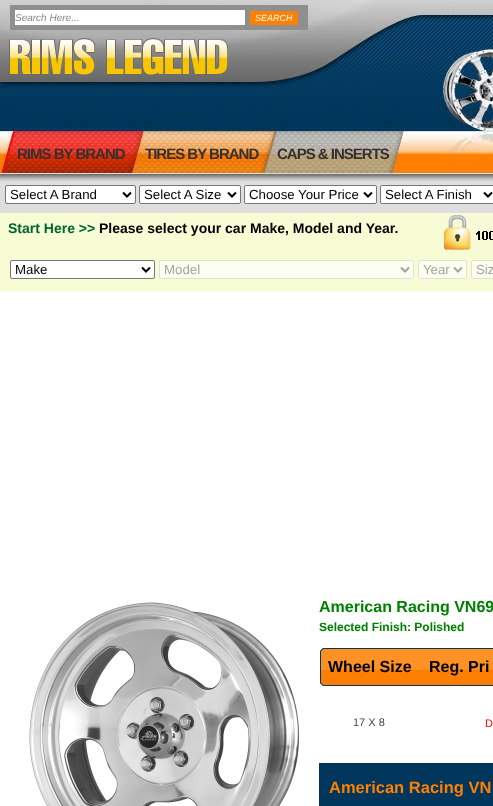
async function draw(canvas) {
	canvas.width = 493;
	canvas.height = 806;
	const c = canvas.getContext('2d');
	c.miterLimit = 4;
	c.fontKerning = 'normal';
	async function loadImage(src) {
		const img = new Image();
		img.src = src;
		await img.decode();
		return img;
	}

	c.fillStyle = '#fff';
	c.fillRect(0, 0, 493, 806);
	c.drawImage(await loadImage('img1.png'), 0, 0, 493, 213);
	c.fillStyle = '#8f8f8f';
	c.fillRect(10, 5, 298, 25);
	c.fillStyle = '#fff';
	c.fillRect(15, 10, 230, 15);
	c.font = 'italic 10px Liberation Sans';
	c.fillStyle = '#888';
	c.fillText('Search Here...', 15, 21);
	c.fillStyle = '#ff7f00';
	c.fillRect(250, 11, 48, 14);
	c.font = 'italic 9px Liberation Sans';
	c.fillStyle = '#fff';
	c.fillText('SEARCH', 255, 21);
	c.drawImage(await loadImage('img2.png'), 9, 38, 219, 37);
	c.letterSpacing = '-1px';
	c.font = 'bold 15px Liberation Sans';
	c.fillStyle = '#343030';
	for (const [text, x, y] of [
		['RIMS BY BRAND', 17, 159],
		['TIRES BY BRAND', 145, 159],
		['CAPS & INSERTS', 277, 159],
	]) {
		c.fillText(text, x, y);
	}
	c.fillStyle = '#fff';
	c.beginPath();
	c.roundRect(5.5, 185.5, 130, 18, 1.5);
	c.fill();
	c.strokeStyle = '#767676';
	c.stroke();
	c.beginPath();
	c.moveTo(123, 192.5);
	c.lineTo(127, 196.5);
	c.lineTo(131, 192.5);
	c.strokeStyle = '#000';
	c.lineWidth = 2;
	c.stroke();
	c.letterSpacing = '0px';
	c.font = '13.25px Liberation Sans';
	c.fillStyle = '#000';
	c.fillText('Select A Brand', 10, 199);
	c.fillStyle = '#fff';
	c.beginPath();
	c.roundRect(139.5, 185.5, 101, 18, 1.5);
	c.fill();
	c.strokeStyle = '#767676';
	c.lineWidth = 1;
	c.stroke();
	c.beginPath();
	c.moveTo(228, 192.5);
	c.lineTo(232, 196.5);
	c.lineTo(236, 192.5);
	c.strokeStyle = '#000';
	c.lineWidth = 2;
	c.stroke();
	c.fillStyle = '#000';
	c.fillText('Select A Size', 144, 199);
	c.fillStyle = '#fff';
	c.beginPath();
	c.roundRect(244.5, 185.5, 132, 18, 1.5);
	c.fill();
	c.strokeStyle = '#767676';
	c.lineWidth = 1;
	c.stroke();
	c.beginPath();
	c.moveTo(364, 192.5);
	c.lineTo(368, 196.5);
	c.lineTo(372, 192.5);
	c.strokeStyle = '#000';
	c.lineWidth = 2;
	c.stroke();
	c.fillStyle = '#000';
	c.fillText('Choose Your Price', 249, 199);
	c.fillStyle = '#fff';
	c.beginPath();
	c.roundRect(380.5, 185.5, 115, 18, 1.5);
	c.fill();
	c.strokeStyle = '#767676';
	c.lineWidth = 1;
	c.stroke();
	c.beginPath();
	c.moveTo(484, 192.5);
	c.lineTo(488, 196.5);
	c.lineTo(492, 192.5);
	c.strokeStyle = '#000';
	c.lineWidth = 2;
	c.stroke();
	c.fillStyle = '#000';
	c.fillText('Select A Finish', 385, 199);
	c.fillStyle = '#f7fcd4';
	c.fillRect(0, 213, 493, 78);
	c.font = 'bold 14px Liberation Sans';
	c.fillStyle = '#063';
	c.fillText('Start Here >>', 8, 233);
	c.fillStyle = '#000';
	c.fillText('Please select your car Make, Model and Year.', 99, 233);
	c.drawImage(await loadImage('img3.png'), 440, 213, 53, 40);
	c.fillStyle = '#fff';
	c.beginPath();
	c.roundRect(10.5, 260.5, 144, 18, 1.5);
	c.fill();
	c.strokeStyle = '#767676';
	c.lineWidth = 1;
	c.stroke();
	c.beginPath();
	c.moveTo(142, 267.5);
	c.lineTo(146, 271.5);
	c.lineTo(150, 267.5);
	c.strokeStyle = '#000';
	c.lineWidth = 2;
	c.stroke();
	c.font = '13.25px Liberation Sans';
	c.fillStyle = '#000';
	c.fillText('Make', 15, 274);
	c.fillStyle = '#fdfef2';
	c.beginPath();
	c.roundRect(159, 260, 255, 19, 2);
	c.fill();
	c.beginPath();
	c.roundRect(159.5, 260.5, 254, 18, 1.5);
	c.strokeStyle = '#9d9e924d';
	c.lineWidth = 1;
	c.stroke();
	c.beginPath();
	c.moveTo(401, 267.5);
	c.lineTo(405, 271.5);
	c.lineTo(409, 267.5);
	c.strokeStyle = '#a4a599';
	c.lineWidth = 2;
	c.stroke();
	c.fillStyle = '#a4a599';
	c.fillText('Model', 164, 274);
	c.fillStyle = '#fdfef2';
	c.beginPath();
	c.roundRect(418, 260, 49, 19, 2);
	c.fill();
	c.beginPath();
	c.roundRect(418.5, 260.5, 48, 18, 1.5);
	c.strokeStyle = '#9d9e924d';
	c.lineWidth = 1;
	c.stroke();
	c.beginPath();
	c.moveTo(454, 267.5);
	c.lineTo(458, 271.5);
	c.lineTo(462, 267.5);
	c.strokeStyle = '#a4a599';
	c.lineWidth = 2;
	c.stroke();
	c.fillStyle = '#a4a599';
	c.fillText('Year', 423, 274);
	c.fillStyle = '#fdfef2';
	c.beginPath();
	c.roundRect(471, 260, 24, 19, 2);
	c.fill();
	c.beginPath();
	c.roundRect(471.5, 260.5, 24, 18, 1.5);
	c.strokeStyle = '#9d9e924d';
	c.lineWidth = 1;
	c.stroke();
	c.fillStyle = '#a4a599';
	c.fillText('Siz', 476, 274);
	c.drawImage(await loadImage('img4.png'), 29, 602, 271, 204);
	c.font = 'bold 16px Liberation Sans';
	c.fillStyle = '#008000';
	c.fillText('American Racing VN69', 319, 612);
	c.font = 'bold 12px Liberation Sans';
	c.fillText('Selected Finish: Polished', 319, 631);
	c.drawImage(await loadImage('img5.png'), 320, 648, 173, 38);
	c.font = 'bold 16px Liberation Sans';
	c.fillStyle = '#000';
	c.fillText('Wheel Size', 328, 672);
	c.fillText('Reg. Pri', 429, 672);
	c.font = '11px Liberation Sans';
	c.fillStyle = '#444';
	c.fillText('17 X 8', 353, 726);
	c.fillStyle = '#f00';
	c.fillText('D', 485, 727);
	c.fillStyle = '#00365b';
	c.fillRect(319, 763, 174, 43);
	c.font = 'bold 16.5px Liberation Sans';
	c.fillStyle = '#ff7f00';
	c.fillText('American Racing VN', 329, 793);
}

draw(document.querySelector('canvas'));
